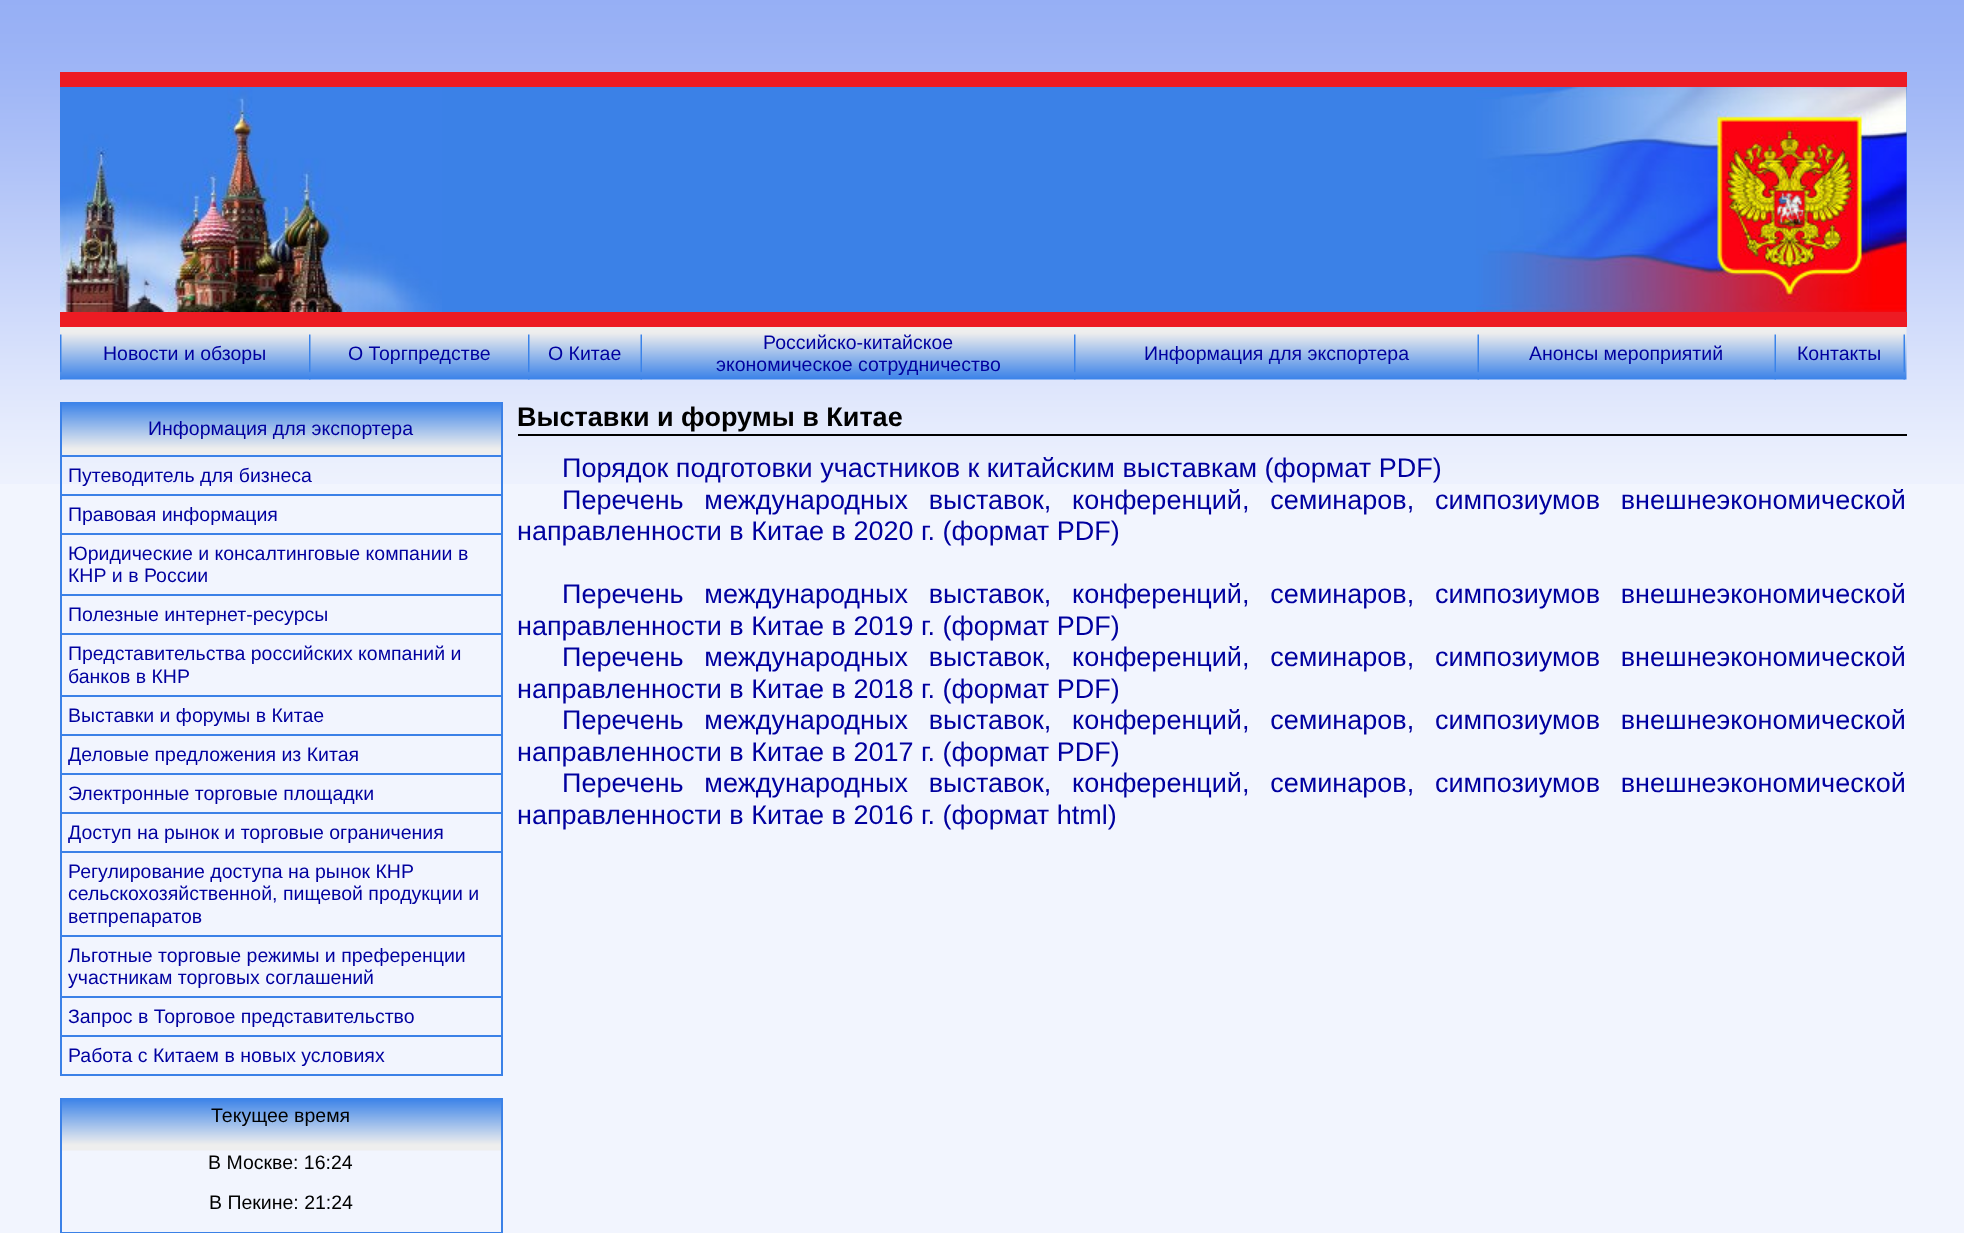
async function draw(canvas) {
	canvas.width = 1964;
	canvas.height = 1233;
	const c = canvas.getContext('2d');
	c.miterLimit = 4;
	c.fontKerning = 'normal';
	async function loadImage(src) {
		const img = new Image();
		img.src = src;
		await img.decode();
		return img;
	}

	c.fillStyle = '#f2f5fe';
	c.fillRect(0, 0, 1964, 1233);
	c.drawImage(await loadImage('img1.png'), 0, 0, 1964, 484);
	c.fillStyle = '#3b81e7';
	c.fillRect(442, 87, 1465, 225);
	c.fillStyle = '#ed1b23';
	c.fillRect(60, 72, 1847, 15);
	c.drawImage(await loadImage('img2.png'), 60, 87, 382, 225);
	c.drawImage(await loadImage('img3.png'), 1476, 87, 431, 225);
	c.fillRect(60, 312, 1847, 15);
	c.drawImage(await loadImage('img4.png'), 60, 327, 1847, 53);
	c.drawImage(await loadImage('img5.png'), 60, 334, 2, 46);
	c.font = '19.5px Liberation Sans';
	c.fillStyle = '#00009f';
	c.fillText('Новости и обзоры', 103, 360);
	c.drawImage(await loadImage('img5.png'), 309, 334, 2, 46);
	c.fillText('О Торгпредстве', 348, 360);
	c.drawImage(await loadImage('img5.png'), 528, 334, 2, 46);
	c.fillText('О Китае', 548, 360);
	c.drawImage(await loadImage('img6.png'), 640, 334, 2, 46);
	c.fillText('Российско-китайское', 763, 349);
	c.fillText('экономическое сотрудничество', 716, 371);
	c.drawImage(await loadImage('img5.png'), 1074, 334, 2, 46);
	c.fillText('Информация для экспортера', 1144, 360);
	c.drawImage(await loadImage('img6.png'), 1477, 334, 2, 46);
	c.fillText('Анонсы мероприятий', 1529, 360);
	c.drawImage(await loadImage('img6.png'), 1774, 334, 2, 46);
	c.fillText('Контакты', 1797, 360);
	c.drawImage(await loadImage('img6.png'), 1903, 334, 2, 46);
	c.drawImage(await loadImage('img7.png'), 62, 402, 439, 53);
	c.fillStyle = '#3b81e7';
	c.fillRect(501, 402, 2, 674);
	c.fillRect(60, 402, 2, 53);
	c.fillStyle = '#00009f';
	c.fillText('Информация для экспортера', 148, 435);
	for (const [x, y, w, h, color] of [
		[60, 1074, 443, 2, '#3b81e7'],
		[60, 455, 2, 621, '#3b81e7'],
		[62, 455, 439, 2, '#3b81e7'],
	]) {
		c.fillStyle = color;
		c.fillRect(x, y, w, h);
	}
	c.fillStyle = '#00009f';
	c.fillText('Путеводитель для бизнеса', 68, 482);
	c.fillStyle = '#3b81e7';
	c.fillRect(62, 494, 439, 2);
	c.fillStyle = '#00009f';
	c.fillText('Правовая информация', 68, 521);
	c.fillStyle = '#3b81e7';
	c.fillRect(62, 533, 439, 2);
	c.fillStyle = '#00009f';
	c.fillText('Юридические и консалтинговые компании в', 68, 560);
	c.fillText('КНР и в России', 68, 582);
	c.fillStyle = '#3b81e7';
	c.fillRect(62, 594, 439, 2);
	c.fillStyle = '#00009f';
	c.fillText('Полезные интернет-ресурсы', 68, 621);
	c.fillStyle = '#3b81e7';
	c.fillRect(62, 633, 439, 2);
	c.fillStyle = '#00009f';
	c.fillText('Представительства российских компаний и', 68, 660);
	c.fillText('банков в КНР', 68, 683);
	c.fillStyle = '#3b81e7';
	c.fillRect(62, 695, 439, 2);
	c.fillStyle = '#00009f';
	c.fillText('Выставки и форумы в Китае', 68, 722);
	c.fillStyle = '#3b81e7';
	c.fillRect(62, 734, 439, 2);
	c.fillStyle = '#00009f';
	c.fillText('Деловые предложения из Китая', 68, 761);
	c.fillStyle = '#3b81e7';
	c.fillRect(62, 773, 439, 2);
	c.fillStyle = '#00009f';
	c.fillText('Электронные торговые площадки', 68, 800);
	c.fillStyle = '#3b81e7';
	c.fillRect(62, 812, 439, 2);
	c.fillStyle = '#00009f';
	c.fillText('Доступ на рынок и торговые ограничения', 68, 839);
	c.fillStyle = '#3b81e7';
	c.fillRect(62, 851, 439, 2);
	c.fillStyle = '#00009f';
	for (const [text, x, y] of [
		['Регулирование доступа на рынок КНР', 68, 878],
		['сельскохозяйственной, пищевой продукции и', 68, 900],
		['ветпрепаратов', 68, 923],
	]) {
		c.fillText(text, x, y);
	}
	c.fillStyle = '#3b81e7';
	c.fillRect(62, 935, 439, 2);
	c.fillStyle = '#00009f';
	c.fillText('Льготные торговые режимы и преференции', 68, 962);
	c.fillText('участникам торговых соглашений', 68, 984);
	c.fillStyle = '#3b81e7';
	c.fillRect(62, 996, 439, 2);
	c.fillStyle = '#00009f';
	c.fillText('Запрос в Торговое представительство', 68, 1023);
	c.fillStyle = '#3b81e7';
	c.fillRect(62, 1035, 439, 2);
	c.fillStyle = '#00009f';
	c.fillText('Работа с Китаем в новых условиях', 68, 1062);
	c.drawImage(await loadImage('img8.png'), 62, 1098, 439, 53);
	c.fillStyle = '#3b81e7';
	c.fillRect(501, 1098, 2, 135);
	c.fillRect(60, 1098, 2, 93);
	c.fillStyle = '#000';
	c.fillText('Текущее время', 211, 1122);
	c.fillText('В Москве: 16:24', 208, 1169);
	c.fillStyle = '#3b81e7';
	c.fillRect(60, 1232, 443, 1);
	c.fillRect(60, 1191, 2, 42);
	c.fillStyle = '#000';
	c.fillText('В Пекине: 21:24', 209, 1209);
	c.fillRect(518, 434, 1389, 2);
	c.font = 'bold 27px Liberation Sans';
	c.fillText('Выставки и форумы в Китае', 517, 426);
	c.font = '27px Liberation Sans';
	c.fillStyle = '#00009f';
	c.fillText('Порядок подготовки участников к китайским выставкам (формат PDF)', 562, 477);
	c.wordSpacing = '13.25px';
	c.fillText('Перечень международных выставок, конференций, семинаров, симпозиумов внешнеэкономической', 562, 509);
	c.wordSpacing = '0px';
	c.fillText('направленности в Китае в 2020 г. (формат PDF)', 517, 540);
	c.wordSpacing = '13.25px';
	c.fillText('Перечень международных выставок, конференций, семинаров, симпозиумов внешнеэкономической', 562, 603);
	c.wordSpacing = '0px';
	c.fillText('направленности в Китае в 2019 г. (формат PDF)', 517, 635);
	c.wordSpacing = '13.25px';
	c.fillText('Перечень международных выставок, конференций, семинаров, симпозиумов внешнеэкономической', 562, 666);
	c.wordSpacing = '0px';
	c.fillText('направленности в Китае в 2018 г. (формат PDF)', 517, 698);
	c.wordSpacing = '13.25px';
	c.fillText('Перечень международных выставок, конференций, семинаров, симпозиумов внешнеэкономической', 562, 729);
	c.wordSpacing = '0px';
	c.fillText('направленности в Китае в 2017 г. (формат PDF)', 517, 761);
	c.wordSpacing = '13.25px';
	c.fillText('Перечень международных выставок, конференций, семинаров, симпозиумов внешнеэкономической', 562, 792);
	c.wordSpacing = '0px';
	c.fillText('направленности в Китае в 2016 г. (формат html)', 517, 824);
}

draw(document.querySelector('canvas'));
